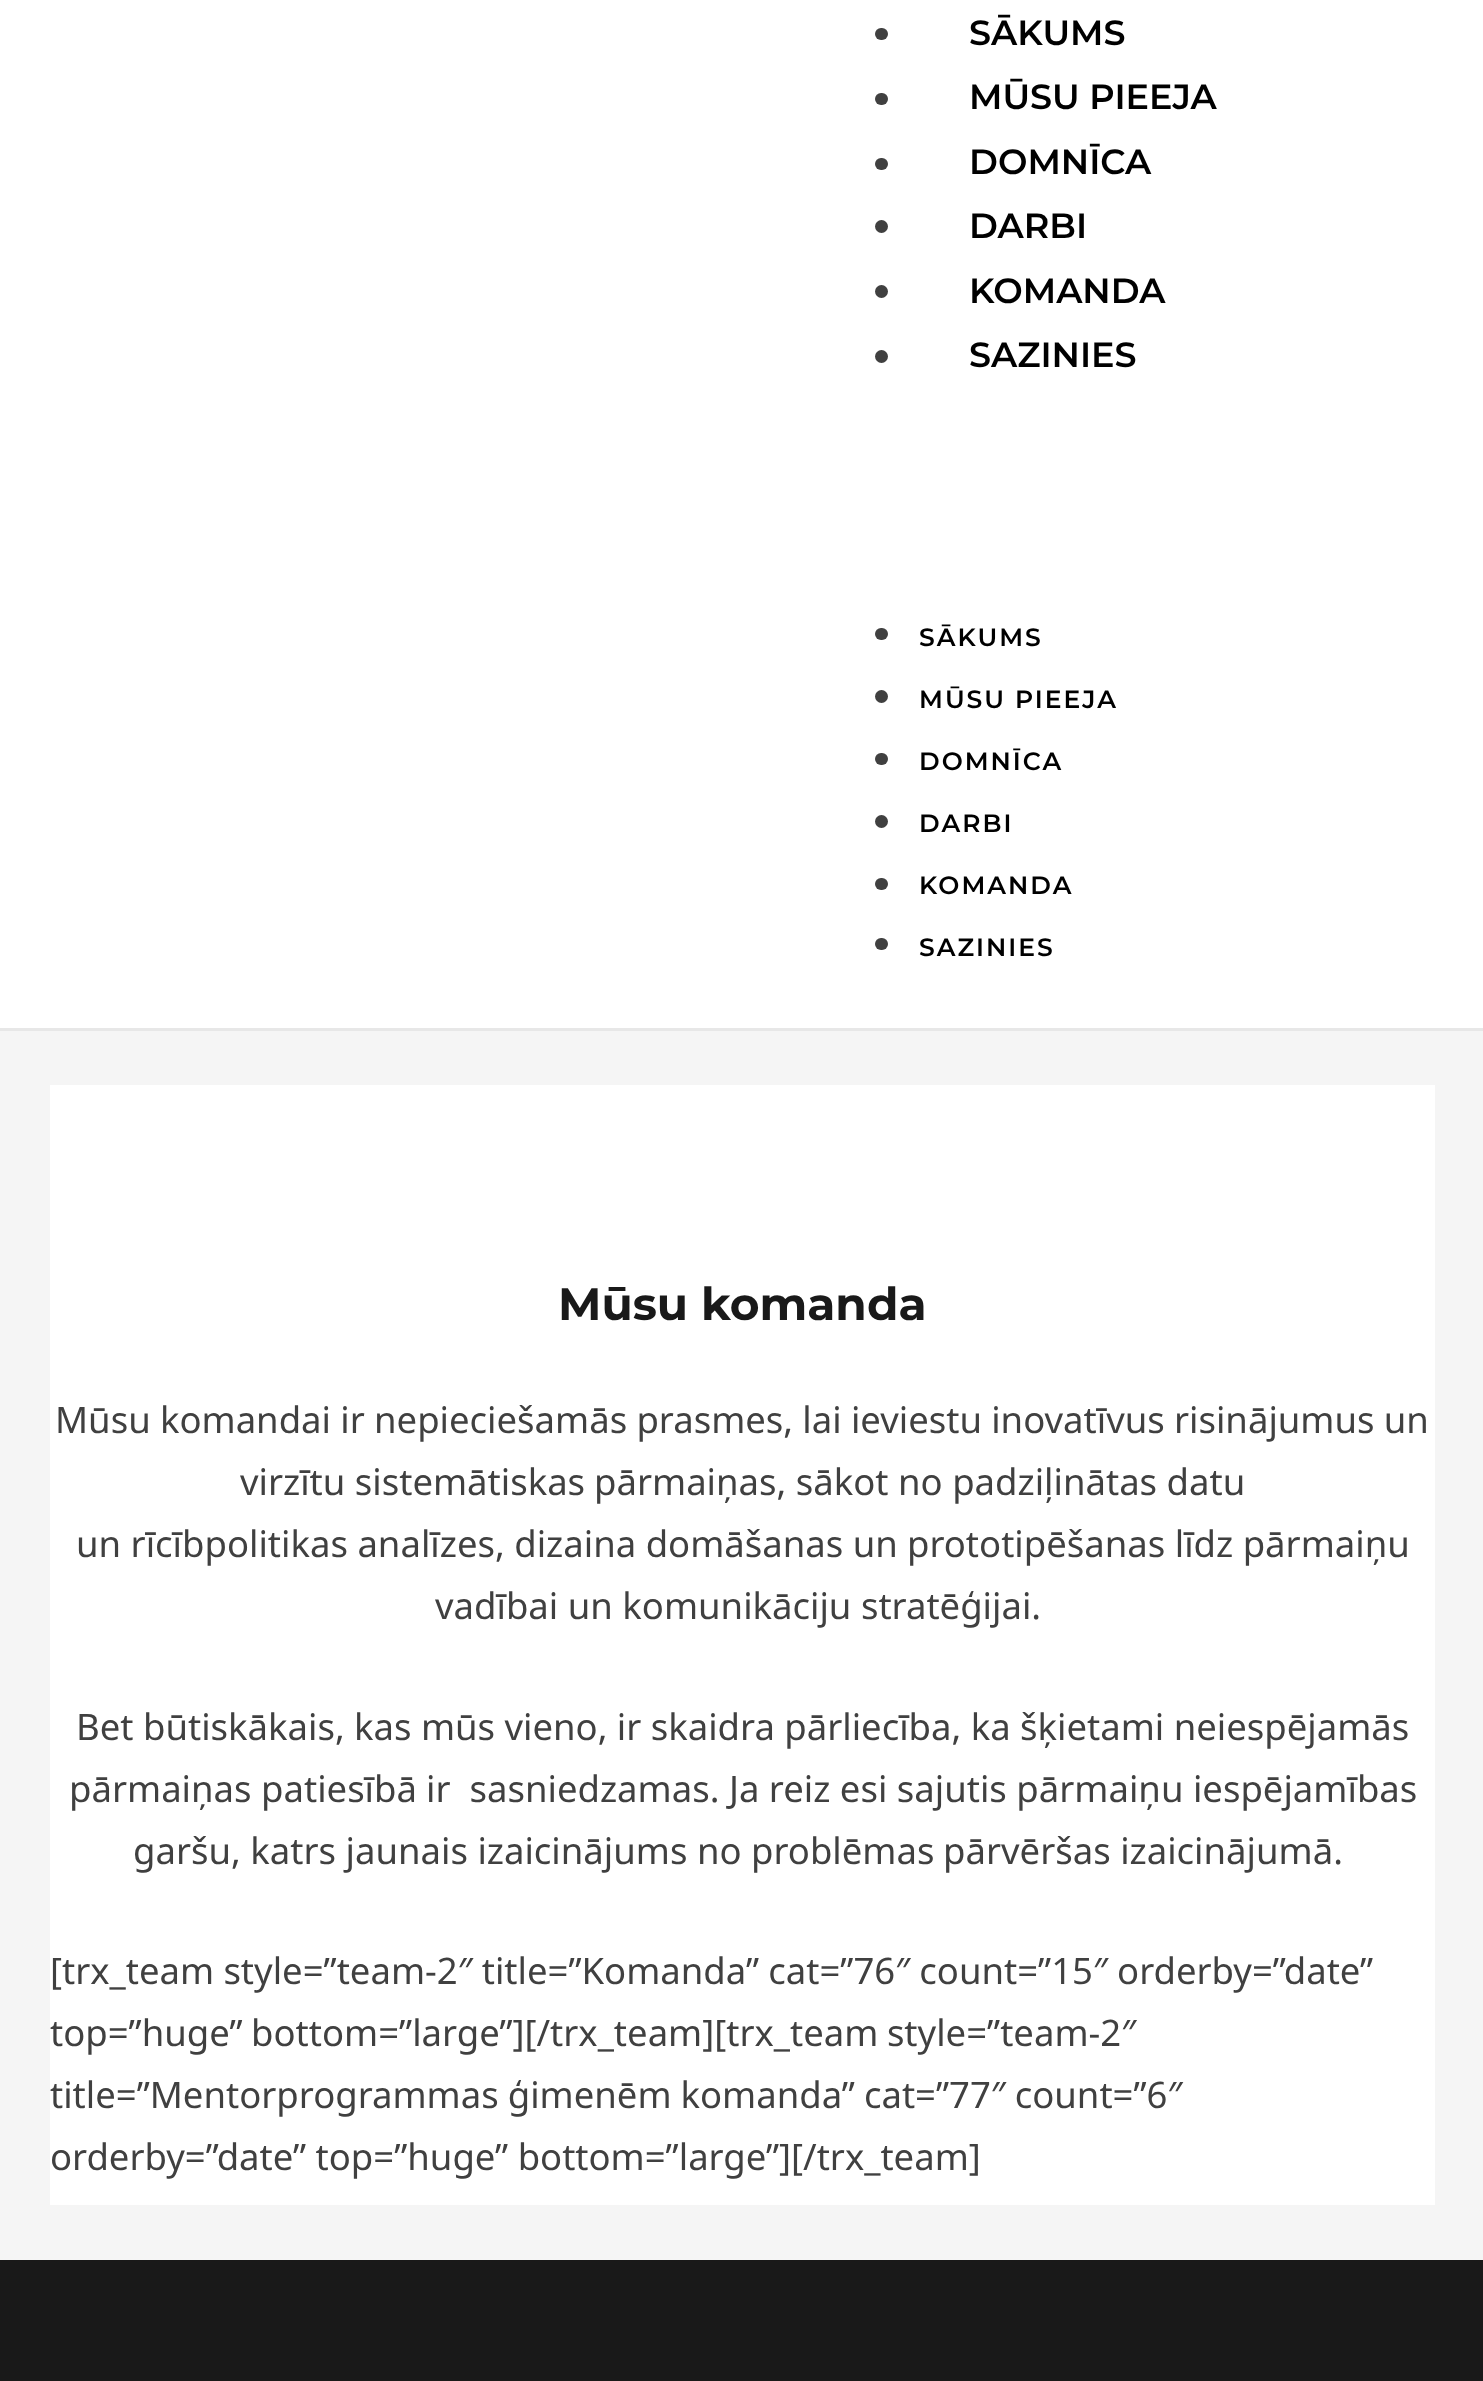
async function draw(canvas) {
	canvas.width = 1483;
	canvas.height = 2381;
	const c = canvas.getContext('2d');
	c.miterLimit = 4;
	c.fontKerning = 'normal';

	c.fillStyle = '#f5f5f5';
	c.fillRect(0, 0, 1483, 2381);
	c.fillStyle = '#fff';
	c.fillRect(0, 0, 1483, 1028);
	c.fillStyle = '#e7e7e7';
	c.fillRect(0, 1028, 1483, 3);
	c.fillStyle = '#404040';
	c.beginPath();
	c.roundRect(875, 28, 13, 12, 6);
	c.fill();
	c.font = '600 35px Montserrat';
	c.fillStyle = '#000';
	c.fillText('SĀKUMS', 969, 45);
	c.fillStyle = '#404040';
	c.beginPath();
	c.roundRect(875, 93, 13, 12, 6);
	c.fill();
	c.fillStyle = '#000';
	c.fillText('MŪSU PIEEJA', 969, 109);
	c.fillStyle = '#404040';
	c.beginPath();
	c.roundRect(875, 158, 13, 12, 6);
	c.fill();
	c.fillStyle = '#000';
	c.fillText('DOMNĪCA', 969, 174);
	c.fillStyle = '#404040';
	c.beginPath();
	c.arc(881.5, 226.5, 6.5, 0, 2 * Math.PI);
	c.fill();
	c.fillStyle = '#000';
	c.fillText('DARBI', 969, 238);
	c.fillStyle = '#404040';
	c.beginPath();
	c.arc(881.5, 291.5, 6.5, 0, 2 * Math.PI);
	c.fill();
	c.fillStyle = '#000';
	c.fillText('KOMANDA', 969, 303);
	c.fillStyle = '#404040';
	c.beginPath();
	c.arc(881.5, 356.5, 6.5, 0, 2 * Math.PI);
	c.fill();
	c.fillStyle = '#000';
	c.fillText('SAZINIES', 969, 367);
	c.fillStyle = '#404040';
	c.beginPath();
	c.roundRect(875, 628, 13, 12, 6);
	c.fill();
	c.letterSpacing = '2px';
	c.font = '600 25px Montserrat';
	c.fillStyle = '#000';
	c.fillText('SĀKUMS', 919, 646);
	c.fillStyle = '#404040';
	c.beginPath();
	c.arc(881.5, 696.5, 6.5, 0, 2 * Math.PI);
	c.fill();
	c.fillStyle = '#000';
	c.fillText('MŪSU PIEEJA', 919, 708);
	c.fillStyle = '#404040';
	c.beginPath();
	c.roundRect(875, 753, 13, 12, 6);
	c.fill();
	c.fillStyle = '#000';
	c.fillText('DOMNĪCA', 919, 770);
	c.fillStyle = '#404040';
	c.beginPath();
	c.arc(881.5, 821.5, 6.5, 0, 2 * Math.PI);
	c.fill();
	c.fillStyle = '#000';
	c.fillText('DARBI', 919, 832);
	c.fillStyle = '#404040';
	c.beginPath();
	c.roundRect(875, 878, 13, 12, 6);
	c.fill();
	c.fillStyle = '#000';
	c.fillText('KOMANDA', 919, 894);
	c.fillStyle = '#404040';
	c.beginPath();
	c.roundRect(875, 938, 13, 12, 6);
	c.fill();
	c.fillStyle = '#000';
	c.fillText('SAZINIES', 919, 956);
	c.fillStyle = '#fff';
	c.fillRect(50, 1085, 1385, 1120);
	c.letterSpacing = '0px';
	c.font = 'bold 45.5px Montserrat';
	c.fillStyle = '#191919';
	c.fillText('Mūsu komanda', 558, 1320);
	c.wordSpacing = '-0.25px';
	c.font = '36.5px Noto Sans';
	c.fillStyle = '#404040';
	c.fillText('Mūsu komandai ir nepieciešamās prasmes, lai ieviestu inovatīvus risinājumus un', 55, 1433);
	c.wordSpacing = '0px';
	for (const [text, x, y] of [
		['virzītu sistemātiskas', 240, 1495],
		['pārmaiņas, sākot no padziļinātas datu', 594, 1495],
		['un rīcībpolitikas analīzes, dizaina domāšanas un', 76, 1557],
		['prototipēšanas līdz pārmaiņu', 907, 1557],
		['vadībai un komunikāciju stratēģijai.', 435, 1619],
		['Bet', 76, 1740],
	]) {
		c.fillText(text, x, y);
	}
	c.wordSpacing = '-0.1px';
	c.fillText('būtiskākais, kas mūs vieno, ir skaidra pārliecība, ka šķietami neiespējamās', 143, 1740);
	c.wordSpacing = '0px';
	for (const [text, x, y] of [
		['pārmaiņas patiesībā', 69, 1802],
		['ir  sasniedzamas. Ja reiz esi sajutis pārmaiņu iespējamības', 426, 1802],
		['garšu, katrs jaunais izaicinājums no problēmas', 133, 1864],
		['pārvēršas izaicinājumā.', 943, 1864],
	]) {
		c.fillText(text, x, y);
	}
	c.wordSpacing = '-0.25px';
	c.fillText('[trx_team style=”team-2″ title=”Komanda” cat=”76″ count=”15″ orderby=”date”', 50, 1984);
	c.wordSpacing = '-1px';
	c.fillText('top=”huge” bottom=”large”][/trx_team][trx_team style=”team-2″', 50, 2046);
	c.wordSpacing = '-0.5px';
	c.fillText('title=”Mentorprogrammas ģimenēm komanda” cat=”77″ count=”6″', 50, 2108);
	c.wordSpacing = '0px';
	c.fillText('orderby=”date” top=”huge” bottom=”large”][/trx_team]', 50, 2170);
	c.fillStyle = '#191919';
	c.fillRect(0, 2260, 1483, 121);
}

draw(document.querySelector('canvas'));
